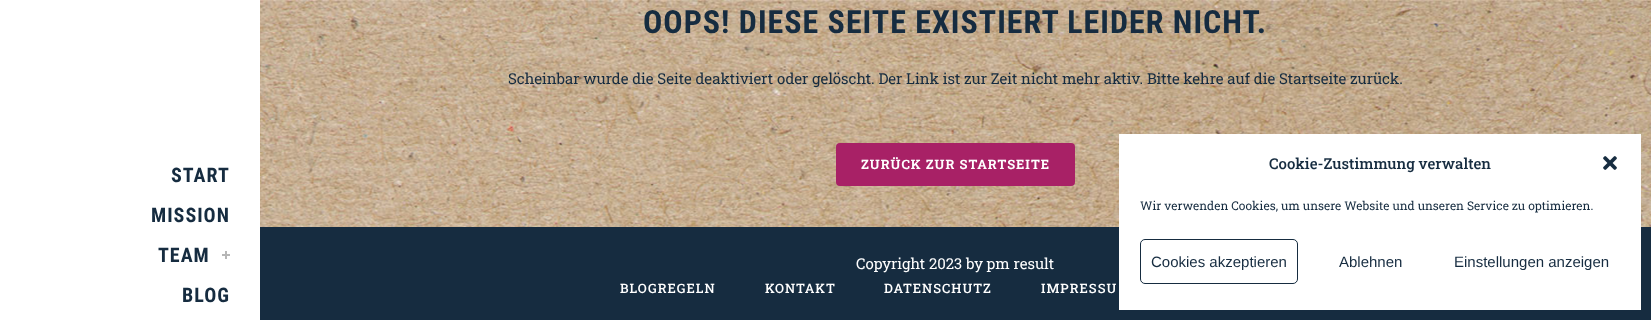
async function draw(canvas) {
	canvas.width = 1651;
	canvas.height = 320;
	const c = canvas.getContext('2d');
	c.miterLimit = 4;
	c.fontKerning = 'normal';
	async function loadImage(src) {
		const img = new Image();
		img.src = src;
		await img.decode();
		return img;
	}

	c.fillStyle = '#fff';
	c.fillRect(0, 0, 1651, 320);
	c.drawImage(await loadImage('img1.png'), 260, 0, 1391, 227);
	c.letterSpacing = '1px';
	c.font = 'bold 32px Roboto Condensed';
	c.fillStyle = '#162c40';
	c.fillText('OOPS! DIESE SEITE EXISTIERT LEIDER NICHT.', 643, 33);
	c.letterSpacing = '0px';
	c.font = '15px Roboto Slab';
	c.fillText('Scheinbar wurde die Seite deaktiviert oder gelöscht. Der Link ist zur Zeit nicht mehr aktiv. Bitte kehre auf die Startseite zurück.', 508, 84);
	c.fillStyle = '#a82166';
	c.beginPath();
	c.roundRect(837, 144, 237, 41, 3);
	c.fill();
	c.strokeStyle = '#a82166';
	c.lineWidth = 2;
	c.stroke();
	c.letterSpacing = '1px';
	c.font = 'bold 13px Roboto Slab';
	c.fillStyle = '#fff';
	c.fillText('ZURÜCK ZUR STARTSEITE', 861, 169);
	c.font = 'bold 20px Roboto Condensed';
	c.fillStyle = '#162c40';
	for (const [text, x, y] of [
		['START', 171, 182],
		['MISSION', 151, 222],
		['TEAM', 158, 262],
	]) {
		c.fillText(text, x, y);
	}
	c.drawImage(await loadImage('img2.png'), 222, 251, 8, 8);
	c.fillText('BLOG', 182, 302);
	c.fillRect(260, 227, 1391, 93);
	c.letterSpacing = '0px';
	c.font = '15px Roboto Slab';
	c.fillStyle = '#fff';
	c.fillText('Copyright 2023 by pm result', 856, 269);
	c.letterSpacing = '1px';
	c.font = '500 13px Roboto Slab';
	for (const [text, x, y] of [
		['BLOGREGELN', 620, 293],
		['KONTAKT', 765, 293],
		['DATENSCHUTZ', 884, 293],
		['IMPRESSU', 1041, 293],
	]) {
		c.fillText(text, x, y);
	}
	c.fillRect(1119, 134, 522, 176);
	c.letterSpacing = '0px';
	c.font = '500 15px Roboto Slab';
	c.fillStyle = '#162c40';
	c.fillText('Cookie-Zustimmung verwalten', 1269, 169);
	c.drawImage(await loadImage('img3.png'), 1603, 156, 14, 14);
	c.font = '12px Roboto Slab';
	c.fillText('Wir verwenden Cookies, um unsere Website und unseren Service zu optimieren.', 1140, 210);
	c.beginPath();
	c.roundRect(1140.5, 239.5, 157, 44, 4.5);
	c.strokeStyle = '#162c40';
	c.lineWidth = 1;
	c.stroke();
	c.font = '15px Liberation Sans';
	for (const [text, x, y] of [
		['Cookies akzeptieren', 1151, 267],
		['Ablehnen', 1339, 267],
		['Einstellungen anzeigen', 1454, 267],
	]) {
		c.fillText(text, x, y);
	}
}

draw(document.querySelector('canvas'));
